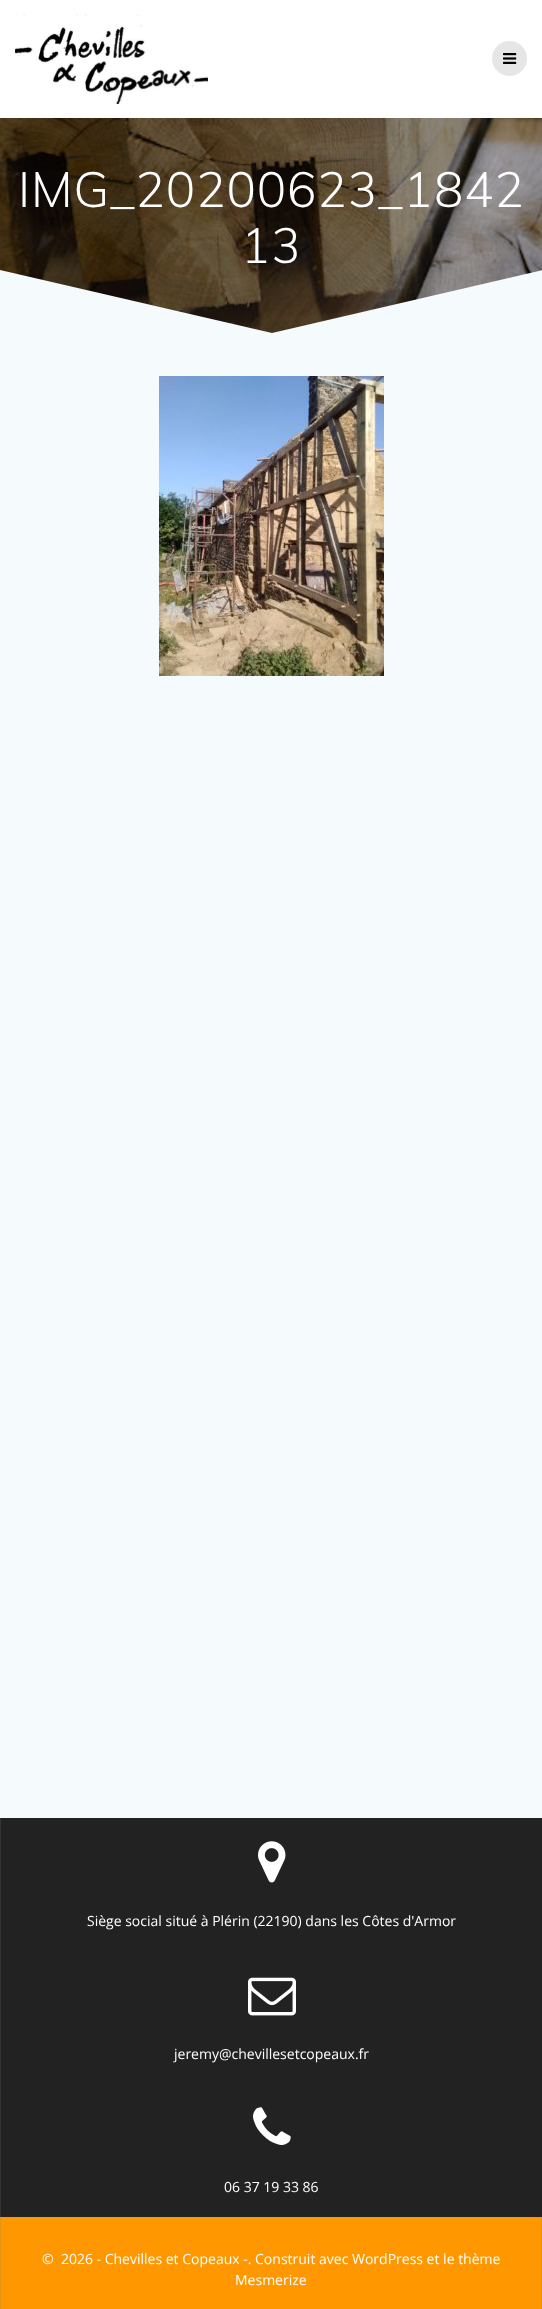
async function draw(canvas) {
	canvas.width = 542;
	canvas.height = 2309;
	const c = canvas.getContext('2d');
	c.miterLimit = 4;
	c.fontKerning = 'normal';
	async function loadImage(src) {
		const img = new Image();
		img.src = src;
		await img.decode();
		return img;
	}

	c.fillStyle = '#222';
	c.fillRect(0, 0, 542, 2309);
	c.fillStyle = '#fff';
	c.fillRect(0, 0, 542, 118);
	c.drawImage(await loadImage('img1.png'), 15, 14, 193, 90);
	c.fillStyle = '#e6e6e6';
	c.beginPath();
	c.arc(509.5, 58.5, 17.5, 0, 2 * Math.PI);
	c.fill();
	c.drawImage(await loadImage('img2.png'), 503, 53, 14, 11);
	c.drawImage(await loadImage('img3.png'), 0, 118, 542, 215);
	c.letterSpacing = '0.9px';
	c.font = '300 49px Muli';
	c.fillStyle = '#fff';
	c.fillText('IMG_20200623_1842', 18, 207);
	c.fillText('13', 241, 263);
	c.fillStyle = '#f5fafd';
	c.beginPath();
	c.moveTo(272, 333);
	c.lineTo(0, 270);
	c.lineTo(0, 336);
	c.lineTo(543, 336);
	c.lineTo(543, 270);
	c.closePath();
	c.fill();
	c.fillRect(0, 336, 542, 1482);
	c.drawImage(await loadImage('img4.png'), 159, 376, 225, 300);
	c.fillStyle = '#353535';
	c.fillRect(0, 1818, 1, 399);
	c.drawImage(await loadImage('img5.png'), 258, 1841, 28, 42);
	c.letterSpacing = '0px';
	c.font = '14px Open Sans';
	c.fillStyle = '#fff';
	c.fillText('Siège social situé à Plérin (22190) dans les Côtes d\'Armor', 87, 1926);
	c.drawImage(await loadImage('img6.png'), 248, 1977, 48, 39);
	c.fillText('jeremy@chevillesetcopeaux.fr', 174, 2059);
	c.drawImage(await loadImage('img7.png'), 253, 2107, 38, 38);
	c.fillText('06 37 19 33 86', 224, 2192);
	for (const [x, y, w, h, color] of [
		[1, 2217, 540, 92, '#ff9800'],
		[541, 2217, 1, 92, '#e6931a'],
		[0, 2217, 1, 92, '#e6931a'],
	]) {
		c.fillStyle = color;
		c.fillRect(x, y, w, h);
	}
	c.fillStyle = '#fff';
	c.fillText('©  2026 - Chevilles et Copeaux -. Construit avec WordPress et le thème', 42, 2264);
	c.fillText('Mesmerize', 235, 2285);
}

draw(document.querySelector('canvas'));
